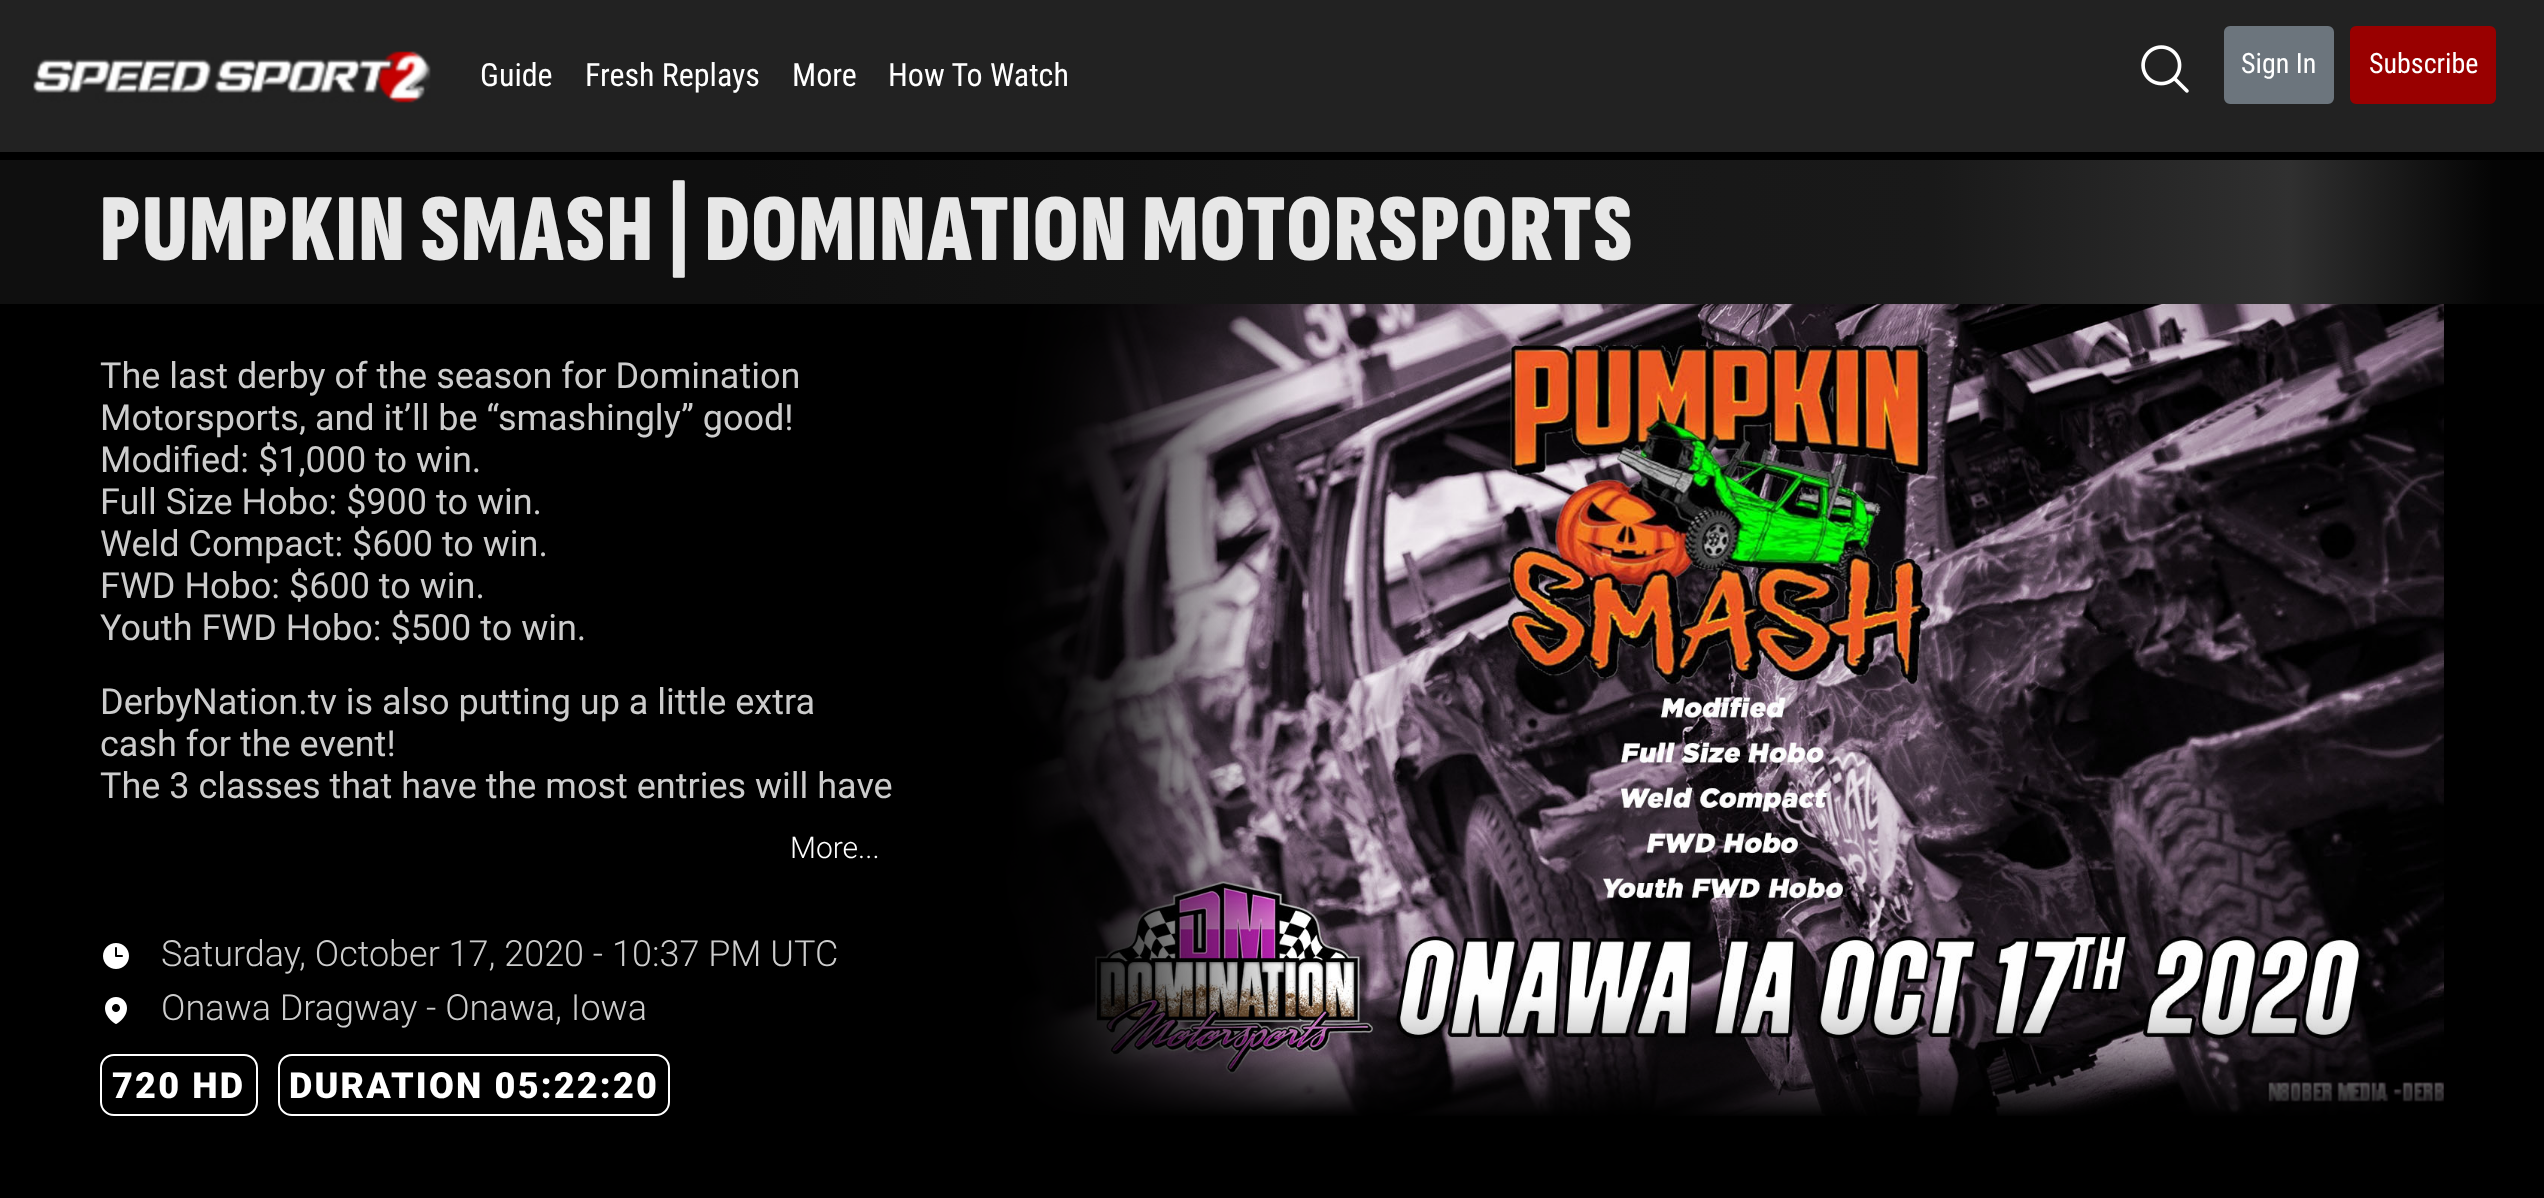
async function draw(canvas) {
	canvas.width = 2544;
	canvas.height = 1198;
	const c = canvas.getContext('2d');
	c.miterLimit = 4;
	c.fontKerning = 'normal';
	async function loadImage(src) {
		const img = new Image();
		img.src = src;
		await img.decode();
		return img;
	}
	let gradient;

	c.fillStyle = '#000';
	c.fillRect(0, 0, 2544, 1198);
	c.fillStyle = '#222';
	c.fillRect(0, 0, 2544, 152);
	c.drawImage(await loadImage('img1.png'), 33, 51, 398, 52);
	c.font = '32px Roboto Condensed';
	c.fillStyle = '#fff';
	for (const [text, x, y] of [
		['Guide', 480, 86],
		['Fresh Replays', 585, 86],
		['More', 792, 86],
		['How To Watch', 888, 86],
	]) {
		c.fillText(text, x, y);
	}
	c.drawImage(await loadImage('img2.png'), 2141, 45, 48, 48);
	c.fillStyle = '#6c757d';
	c.beginPath();
	c.roundRect(2225, 27, 108, 76, 5);
	c.fill();
	c.strokeStyle = '#6c757d';
	c.lineWidth = 2;
	c.stroke();
	c.font = '28px Roboto Condensed';
	c.fillStyle = '#fff';
	c.fillText('Sign In', 2241, 73);
	c.fillStyle = '#900';
	c.beginPath();
	c.roundRect(2351, 27, 144, 76, 5);
	c.fill();
	c.strokeStyle = '#900';
	c.stroke();
	c.fillStyle = '#fff';
	c.fillText('Subscribe', 2369, 73);
	gradient = c.createLinearGradient(0, 232, 2544, 232);
	gradient.addColorStop(0.29, '#0f0f0f');
	gradient.addColorStop(0.52, '#161616');
	gradient.addColorStop(0.76, '#191919');
	gradient.addColorStop(0.9, '#303030');
	gradient.addColorStop(0.98, '#040404');
	c.fillStyle = gradient;
	c.fillRect(0, 160, 2544, 144);
	c.letterSpacing = '1.9px';
	c.font = '900 96px Sofia Sans Extra Condensed';
	c.fillStyle = '#e7e7e7';
	c.fillText('PUMPKIN SMASH | DOMINATION MOTORSPORTS', 100, 260);
	c.letterSpacing = '0px';
	c.font = '36px Roboto';
	c.fillStyle = '#ccc';
	for (const [text, x, y] of [
		['The last derby of the season for Domination', 100, 388],
		['Motorsports, and it’ll be “smashingly” good!', 100, 430],
		['Modified: $1,000 to win.', 100, 472],
		['Full Size Hobo: $900 to win.', 100, 514],
		['Weld Compact: $600 to win.', 100, 556],
		['FWD Hobo: $600 to win.', 100, 598],
		['Youth FWD Hobo: $500 to win.', 100, 640],
		['DerbyNation.tv is also putting up a little extra', 100, 714],
		['cash for the event!', 100, 756],
		['The 3 classes that have the most entries will have', 100, 798],
	]) {
		c.fillText(text, x, y);
	}
	c.font = '300 30px Roboto';
	c.fillStyle = '#fff';
	c.fillText('More...', 790, 858);
	c.drawImage(await loadImage('img3.png'), 103, 943, 26, 26);
	c.font = '300 36px Roboto';
	c.fillStyle = '#ccc';
	c.fillText('Saturday, October 17, 2020 - 10:37 PM UTC', 161, 966);
	c.drawImage(await loadImage('img4.png'), 105, 997, 22, 27);
	c.fillText('Onawa Dragway - Onawa, Iowa', 161, 1020);
	c.beginPath();
	c.roundRect(101, 1055, 156, 60, 13);
	c.strokeStyle = '#fff';
	c.stroke();
	c.letterSpacing = '2.2px';
	c.font = '900 36px Roboto';
	c.fillStyle = '#fff';
	c.fillText('720 HD', 112, 1098);
	c.beginPath();
	c.roundRect(279, 1055, 390, 60, 13);
	c.stroke();
	c.fillText('DURATION 05:22:20', 289, 1098);
	c.drawImage(await loadImage('img5.png'), 1000, 304, 1444, 812);
}

draw(document.querySelector('canvas'));
